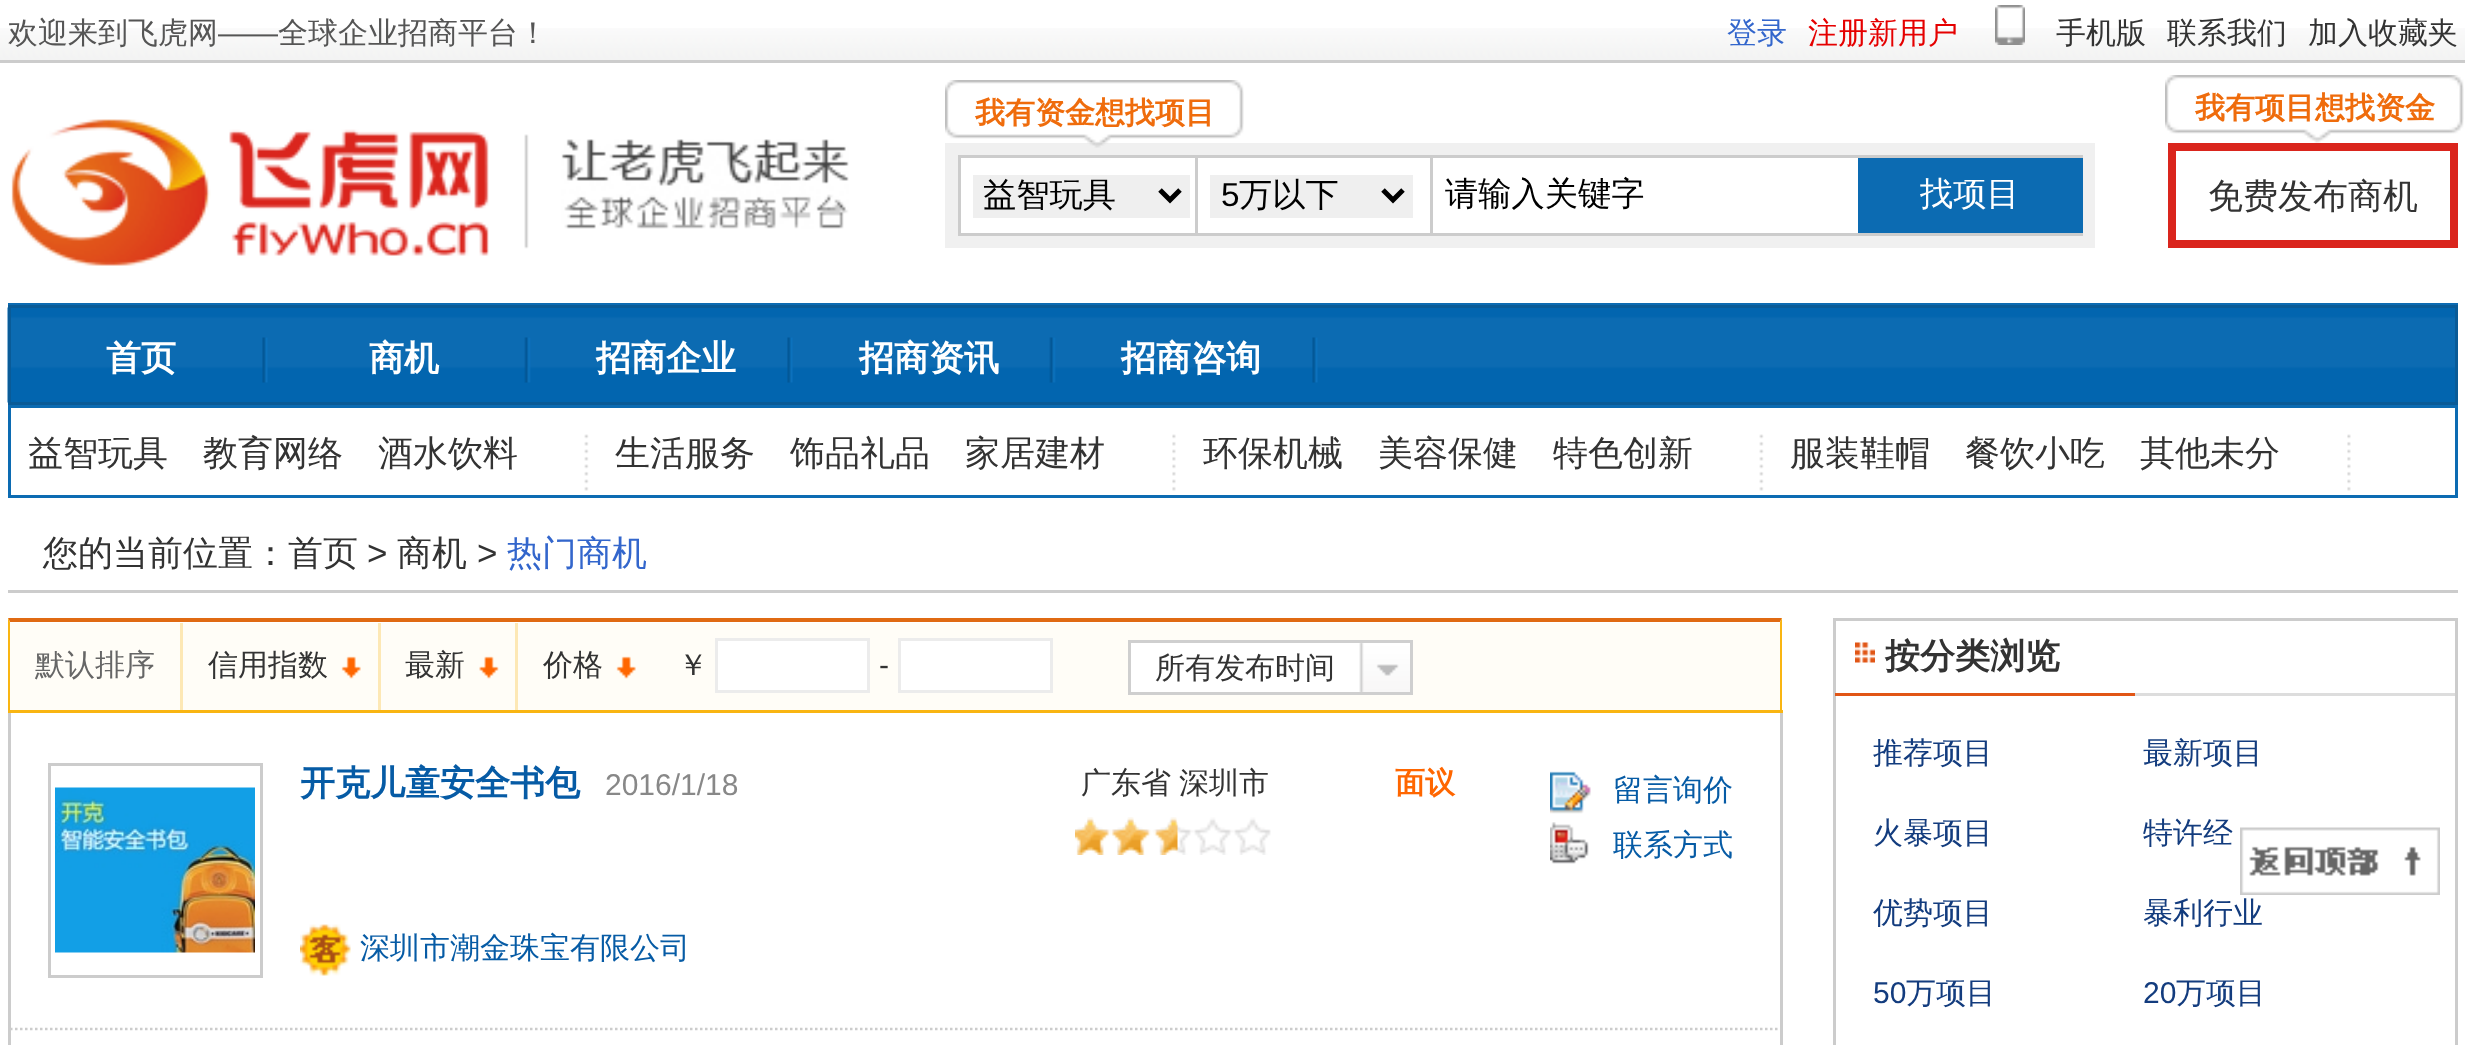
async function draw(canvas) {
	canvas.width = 2465;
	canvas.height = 1045;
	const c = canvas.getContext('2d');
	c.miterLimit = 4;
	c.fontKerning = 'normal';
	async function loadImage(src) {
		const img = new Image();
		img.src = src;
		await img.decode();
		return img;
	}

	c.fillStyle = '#fff';
	c.fillRect(0, 0, 2465, 1045);
	c.drawImage(await loadImage('img1.png'), 0, 28, 2465, 32);
	c.fillStyle = '#ccc';
	c.fillRect(0, 60, 2465, 3);
	c.font = '500 30px WenQuanYi Zen Hei';
	c.fillStyle = '#555';
	c.fillText('欢迎来到飞虎网', 8, 43);
	c.font = '30px Liberation Sans';
	c.fillText('——', 218, 43);
	c.font = '500 30px WenQuanYi Zen Hei';
	c.fillText('全球企业招商平台！', 278, 43);
	c.fillStyle = '#36c';
	c.fillText('登录', 1727, 43);
	c.fillStyle = '#e50000';
	c.fillText('注册新用户', 1808, 43);
	c.drawImage(await loadImage('img2.png'), 1995, 5, 30, 40);
	c.fillStyle = '#333';
	for (const [text, x, y] of [
		['手机版', 2056, 43],
		['联系我们', 2167, 43],
		['加入收藏夹', 2308, 43],
	]) {
		c.fillText(text, x, y);
	}
	c.fillStyle = '#0c6bb2';
	c.fillRect(8, 303, 2450, 2);
	c.drawImage(await loadImage('img3.png'), 11, 119, 478, 147);
	c.drawImage(await loadImage('img4.png'), 524, 134, 5, 115);
	c.drawImage(await loadImage('img5.png'), 561, 139, 288, 90);
	c.strokeStyle = '#f0f0f0';
	c.lineWidth = 13;
	c.strokeRect(951.5, 149.5, 1137, 92);
	c.drawImage(await loadImage('img6.png'), 945, 80, 299, 68);
	c.font = 'bold 30px WenQuanYi Zen Hei';
	c.fillStyle = '#ef6c0c';
	c.fillText('我有资金想找项目', 975, 123);
	for (const [x, y, w, h, color] of [
		[958, 155, 1125, 3, '#ccc'],
		[958, 233, 1125, 3, '#ccc'],
		[958, 155, 3, 80, '#ccc'],
		[1195, 158, 3, 75, '#ccc'],
		[973, 175, 217, 43, '#efefef'],
	]) {
		c.fillStyle = color;
		c.fillRect(x, y, w, h);
	}
	c.beginPath();
	c.moveTo(1160, 190);
	c.lineTo(1170, 200);
	c.lineTo(1180, 190);
	c.strokeStyle = '#000';
	c.lineWidth = 5;
	c.stroke();
	c.font = '500 33.25px WenQuanYi Zen Hei';
	c.fillStyle = '#000';
	c.fillText('益智玩具', 983, 206);
	c.fillStyle = '#ccc';
	c.fillRect(1430, 158, 3, 75);
	c.fillStyle = '#efefef';
	c.fillRect(1210, 175, 203, 43);
	c.beginPath();
	c.moveTo(1383, 190);
	c.lineTo(1393, 200);
	c.lineTo(1403, 190);
	c.stroke();
	c.font = '33.25px Liberation Sans';
	c.fillStyle = '#000';
	c.fillText('5', 1221, 206);
	c.font = '500 33.25px WenQuanYi Zen Hei';
	c.fillText('万以下', 1239, 206);
	c.fillText('请输入关键字', 1445, 205);
	c.fillStyle = '#0c6bb2';
	c.fillRect(1858, 158, 225, 75);
	c.fillStyle = '#fff';
	c.fillText('找项目', 1920, 205);
	c.strokeStyle = '#da251d';
	c.lineWidth = 8;
	c.strokeRect(2172, 147, 282, 97);
	c.drawImage(await loadImage('img7.png'), 2165, 75, 299, 68);
	c.font = 'bold 30px WenQuanYi Zen Hei';
	c.fillStyle = '#ef6c0c';
	c.fillText('我有项目想找资金', 2195, 118);
	c.font = '500 35px WenQuanYi Zen Hei';
	c.fillStyle = '#333';
	c.fillText('免费发布商机', 2208, 208);
	c.drawImage(await loadImage('img8.png'), 7, 307, 2448, 96);
	c.strokeStyle = '#0a5b97';
	c.lineWidth = 3;
	c.strokeRect(9.5, 306.5, 2447, 97);
	c.drawImage(await loadImage('img9.png'), 262, 337, 6, 46);
	c.font = 'bold 35px WenQuanYi Zen Hei';
	c.fillStyle = '#fff';
	c.fillText('首页', 106, 370);
	c.drawImage(await loadImage('img10.png'), 524, 337, 7, 46);
	c.fillText('商机', 369, 370);
	c.drawImage(await loadImage('img11.png'), 787, 337, 6, 46);
	c.fillText('招商企业', 596, 370);
	c.drawImage(await loadImage('img10.png'), 1049, 337, 7, 46);
	c.fillText('招商资讯', 859, 370);
	c.drawImage(await loadImage('img9.png'), 1312, 337, 6, 46);
	c.fillText('招商咨询', 1121, 370);
	c.strokeStyle = '#0c6bb2';
	c.strokeRect(9.5, 406.5, 2447, 90);
	c.drawImage(await loadImage('img12.png'), 584, 434, 5, 57);
	c.font = '500 35px WenQuanYi Zen Hei';
	c.fillStyle = '#333';
	for (const [text, x, y] of [
		['益智玩具', 28, 465],
		['教育网络', 203, 465],
		['酒水饮料', 378, 465],
	]) {
		c.fillText(text, x, y);
	}
	c.drawImage(await loadImage('img13.png'), 1172, 434, 4, 57);
	for (const [text, x, y] of [
		['生活服务', 615, 465],
		['饰品礼品', 790, 465],
		['家居建材', 965, 465],
	]) {
		c.fillText(text, x, y);
	}
	c.drawImage(await loadImage('img12.png'), 1759, 434, 5, 57);
	for (const [text, x, y] of [
		['环保机械', 1203, 465],
		['美容保健', 1378, 465],
		['特色创新', 1553, 465],
	]) {
		c.fillText(text, x, y);
	}
	c.drawImage(await loadImage('img13.png'), 2347, 434, 4, 57);
	for (const [text, x, y] of [
		['服装鞋帽', 1790, 465],
		['餐饮小吃', 1965, 465],
		['其他未分', 2140, 465],
	]) {
		c.fillText(text, x, y);
	}
	c.fillStyle = '#ccc';
	c.fillRect(8, 590, 2450, 3);
	c.fillStyle = '#333';
	c.fillText('您的当前位置：', 43, 565);
	c.fillText('首页', 288, 565);
	c.font = '35px Liberation Sans';
	c.fillText('>', 367, 565);
	c.font = '500 35px WenQuanYi Zen Hei';
	c.fillText('商机', 397, 565);
	c.font = '35px Liberation Sans';
	c.fillText('>', 477, 565);
	c.font = '500 35px WenQuanYi Zen Hei';
	c.fillStyle = '#36c';
	c.fillText('热门商机', 507, 565);
	c.fillStyle = '#fffdf7';
	c.fillRect(10, 623, 1770, 87);
	c.fillStyle = '#e06a13';
	c.beginPath();
	c.moveTo(8, 618);
	c.lineTo(1782, 618);
	c.lineTo(1780, 622);
	c.lineTo(10, 622);
	c.closePath();
	c.fill();
	c.fillStyle = '#f9b512';
	c.beginPath();
	c.moveTo(1782, 618);
	c.lineTo(1782, 712);
	c.lineTo(1780, 710);
	c.lineTo(1780, 622);
	c.closePath();
	c.fill();
	c.fillRect(8, 710, 1775, 3);
	c.beginPath();
	c.moveTo(8, 712);
	c.lineTo(8, 618);
	c.lineTo(10, 622);
	c.lineTo(10, 710);
	c.closePath();
	c.fill();
	c.font = '500 30px WenQuanYi Zen Hei';
	c.fillStyle = '#666';
	c.fillText('默认排序', 35, 675);
	c.drawImage(await loadImage('img14.png'), 341, 656, 20, 23);
	c.fillStyle = '#fde8b5';
	c.fillRect(180, 623, 3, 87);
	c.fillStyle = '#333';
	c.fillText('信用指数', 208, 675);
	c.drawImage(await loadImage('img15.png'), 479, 656, 20, 23);
	c.fillStyle = '#fde8b5';
	c.fillRect(378, 623, 3, 87);
	c.fillStyle = '#333';
	c.fillText('最新', 405, 675);
	c.drawImage(await loadImage('img14.png'), 616, 656, 20, 23);
	c.fillStyle = '#fde8b5';
	c.fillRect(515, 623, 3, 87);
	c.fillStyle = '#333';
	c.fillText('价格', 543, 675);
	c.fillText('￥', 678, 675);
	c.fillStyle = '#fff';
	c.beginPath();
	c.rect(716.5, 639.5, 152, 52);
	c.fill();
	c.strokeStyle = '#ececec';
	c.stroke();
	c.font = '30px Liberation Sans';
	c.fillStyle = '#333';
	c.fillText('-', 879, 675);
	c.fillStyle = '#fff';
	c.beginPath();
	c.rect(899.5, 639.5, 152, 52);
	c.fill();
	c.stroke();
	c.fillRect(1131, 643, 279, 49);
	c.drawImage(await loadImage('img16.png'), 1359, 643, 51, 49);
	c.strokeStyle = '#cfcfcf';
	c.strokeRect(1129.5, 641.5, 282, 52);
	c.font = '500 30px WenQuanYi Zen Hei';
	c.fillStyle = '#333';
	c.fillText('所有发布时间', 1155, 678);
	c.fillStyle = '#ccc';
	c.fillRect(1780, 713, 3, 332);
	c.fillRect(8, 713, 3, 332);
	c.beginPath();
	c.moveTo(10, 1029);
	c.lineTo(1780, 1029);
	c.strokeStyle = '#ccc';
	c.lineWidth = 2.5;
	c.setLineDash([2.5, 2.5]);
	c.stroke();
	c.lineWidth = 3;
	c.setLineDash([]);
	c.strokeRect(49.5, 764.5, 212, 212);
	c.drawImage(await loadImage('img17.png'), 55, 787, 200, 166);
	c.font = 'bold 35px WenQuanYi Zen Hei';
	c.fillStyle = '#065ba5';
	c.fillText('开克儿童安全书包', 300, 795);
	c.font = '30px Liberation Sans';
	c.fillStyle = '#888';
	c.fillText('2016/1/18', 605, 795);
	c.drawImage(await loadImage('img18.png'), 300, 924, 51, 52);
	c.font = '500 30px WenQuanYi Zen Hei';
	c.fillStyle = '#065ba5';
	c.fillText('深圳市潮金珠宝有限公司', 360, 958);
	c.fillStyle = '#333';
	c.fillText('广东省', 1081, 793);
	c.fillText('深圳市', 1179, 793);
	c.drawImage(await loadImage('img19.png'), 1075, 817, 196, 38);
	c.drawImage(await loadImage('img20.png'), 1075, 817, 103, 38);
	c.font = 'bold 30px WenQuanYi Zen Hei';
	c.fillStyle = '#f60';
	c.fillText('面议', 1395, 793);
	c.drawImage(await loadImage('img21.png'), 1550, 771, 41, 43);
	c.font = '500 30px WenQuanYi Zen Hei';
	c.fillStyle = '#065ba5';
	c.fillText('留言询价', 1613, 800);
	c.drawImage(await loadImage('img22.png'), 1550, 822, 39, 42);
	c.fillText('联系方式', 1613, 855);
	c.strokeRect(1834.5, 619.5, 622, 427);
	c.fillStyle = '#ddd';
	c.fillRect(2135, 693, 320, 3);
	c.drawImage(await loadImage('img23.png'), 1855, 642, 20, 21);
	c.fillStyle = '#e15616';
	c.fillRect(1835, 693, 300, 3);
	c.font = 'bold 35px WenQuanYi Zen Hei';
	c.fillStyle = '#333';
	c.fillText('按分类浏览', 1885, 668);
	c.font = '500 30px WenQuanYi Zen Hei';
	c.fillStyle = '#133c7e';
	for (const [text, x, y] of [
		['推荐项目', 1873, 763],
		['最新项目', 2143, 763],
		['火暴项目', 1873, 843],
		['特许经', 2143, 843],
		['优势项目', 1873, 923],
		['暴利行业', 2143, 923],
	]) {
		c.fillText(text, x, y);
	}
	c.font = '30px Liberation Sans';
	c.fillText('50', 1873, 1003);
	c.font = '500 30px WenQuanYi Zen Hei';
	c.fillText('万项目', 1906, 1003);
	c.font = '30px Liberation Sans';
	c.fillText('20', 2143, 1003);
	c.font = '500 30px WenQuanYi Zen Hei';
	c.fillText('万项目', 2176, 1003);
	c.drawImage(await loadImage('img24.png'), 2240, 827, 200, 68);
}

draw(document.querySelector('canvas'));
